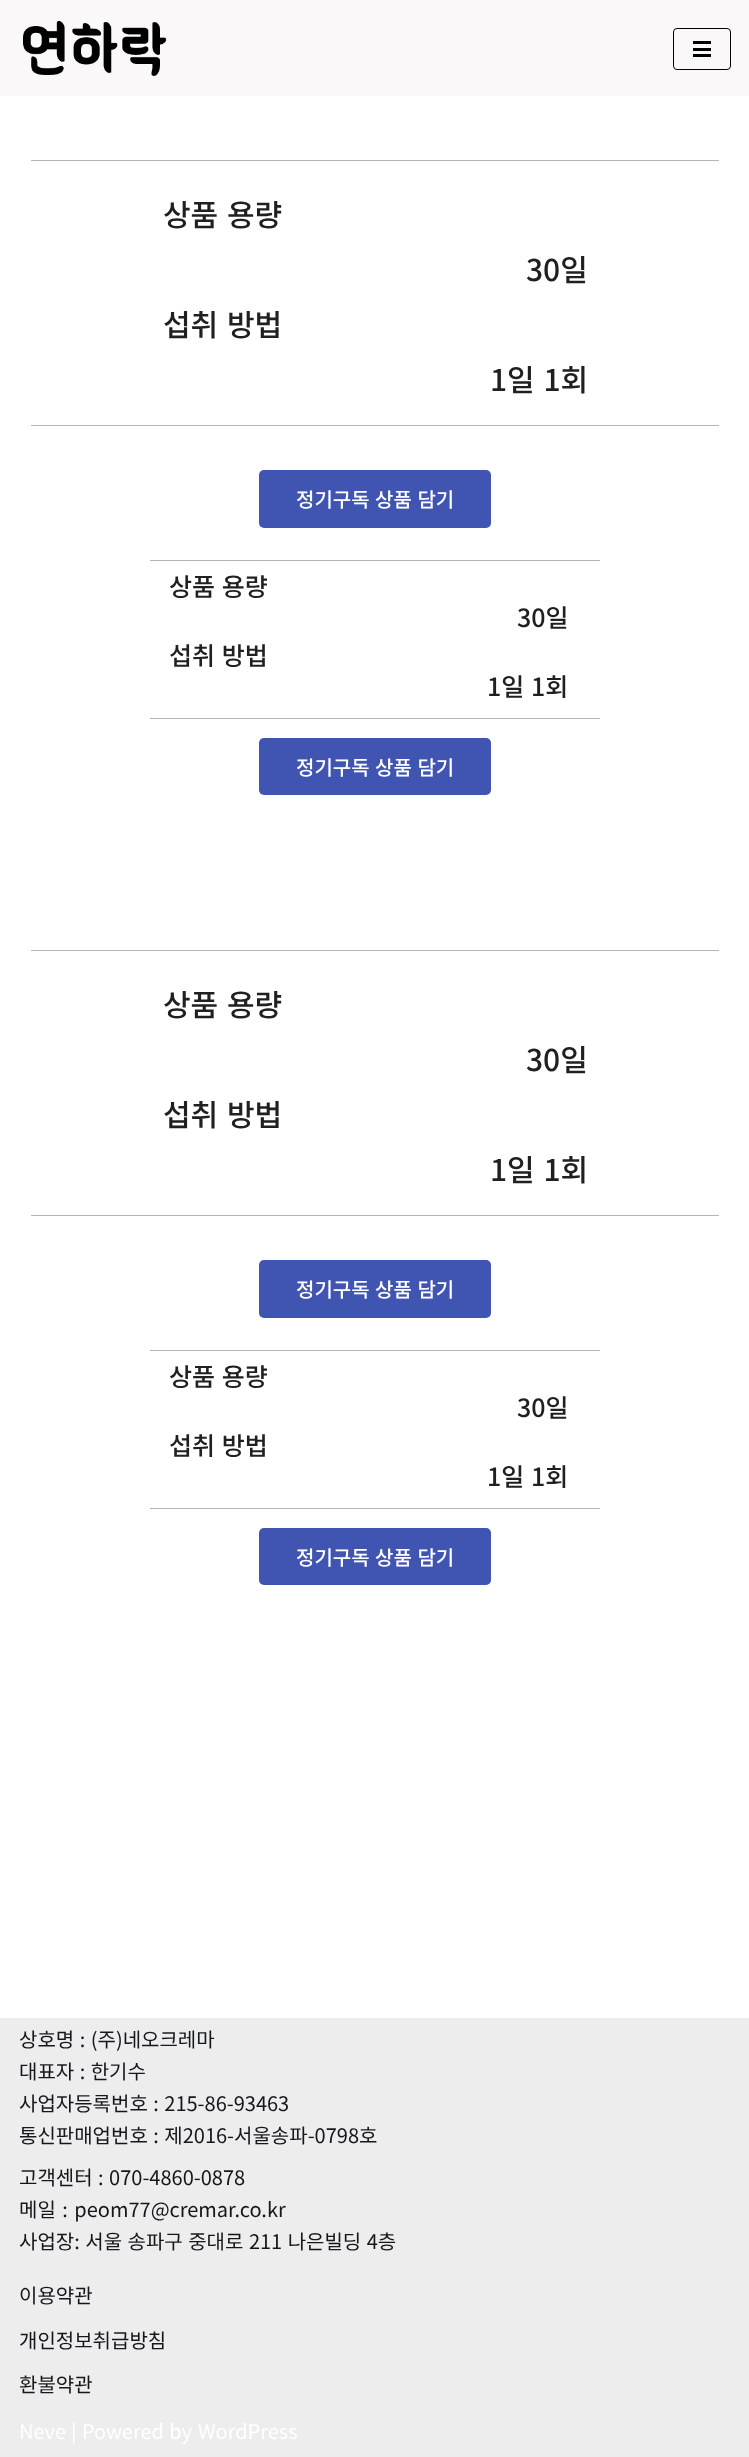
async function draw(canvas) {
	canvas.width = 749;
	canvas.height = 2457;
	const c = canvas.getContext('2d');
	c.miterLimit = 4;
	c.fontKerning = 'normal';
	async function loadImage(src) {
		const img = new Image();
		img.src = src;
		await img.decode();
		return img;
	}

	c.fillStyle = '#fff';
	c.fillRect(0, 0, 749, 2457);
	c.fillStyle = '#faf8f8';
	c.fillRect(0, 0, 749, 96);
	c.drawImage(await loadImage('img1.png'), 23, 20, 144, 57);
	c.beginPath();
	c.roundRect(673.5, 28.5, 57, 41, 3.5);
	c.strokeStyle = '#000';
	c.stroke();
	for (const [x, y, w, h, color] of [
		[693, 41, 18, 3, '#000'],
		[693, 48, 18, 3, '#000'],
		[693, 54, 18, 3, '#000'],
		[31, 160, 688, 1, '#b7b4b4'],
	]) {
		c.fillStyle = color;
		c.fillRect(x, y, w, h);
	}
	c.wordSpacing = '2px';
	c.font = '500 30px Noto Sans KR';
	c.fillStyle = '#202020';
	c.fillText('상품 용량', 163, 226);
	c.wordSpacing = '0px';
	c.fillText('30일', 526, 281);
	c.wordSpacing = '2px';
	c.fillText('섭취 방법', 163, 336);
	c.fillText('1일 1회', 490, 391);
	c.fillStyle = '#b7b4b4';
	c.fillRect(31, 425, 688, 1);
	c.fillStyle = '#4054b2';
	c.beginPath();
	c.roundRect(259, 470, 232, 58, 5);
	c.fill();
	c.wordSpacing = '1px';
	c.font = '500 20px Noto Sans KR';
	c.fillStyle = '#fff';
	c.fillText('정기구독 상품 담기', 296, 507);
	c.fillStyle = '#b7b4b4';
	c.fillRect(150, 560, 450, 1);
	c.font = '500 25px Noto Sans KR';
	c.fillStyle = '#202020';
	c.fillText('상품 용량', 169, 596);
	c.wordSpacing = '0px';
	c.fillText('30일', 517, 627);
	c.wordSpacing = '1px';
	c.fillText('섭취 방법', 169, 665);
	c.fillText('1일 1회', 487, 696);
	c.fillStyle = '#b7b4b4';
	c.fillRect(150, 718, 450, 1);
	c.fillStyle = '#4054b2';
	c.beginPath();
	c.roundRect(259, 738, 232, 57, 5);
	c.fill();
	c.font = '500 20px Noto Sans KR';
	c.fillStyle = '#fff';
	c.fillText('정기구독 상품 담기', 296, 775);
	c.fillStyle = '#b7b4b4';
	c.fillRect(31, 950, 688, 1);
	c.wordSpacing = '2px';
	c.font = '500 30px Noto Sans KR';
	c.fillStyle = '#202020';
	c.fillText('상품 용량', 163, 1016);
	c.wordSpacing = '0px';
	c.fillText('30일', 526, 1071);
	c.wordSpacing = '2px';
	c.fillText('섭취 방법', 163, 1126);
	c.fillText('1일 1회', 490, 1181);
	c.fillStyle = '#b7b4b4';
	c.fillRect(31, 1215, 688, 1);
	c.fillStyle = '#4054b2';
	c.beginPath();
	c.roundRect(259, 1260, 232, 58, 5);
	c.fill();
	c.wordSpacing = '1px';
	c.font = '500 20px Noto Sans KR';
	c.fillStyle = '#fff';
	c.fillText('정기구독 상품 담기', 296, 1297);
	c.fillStyle = '#b7b4b4';
	c.fillRect(150, 1350, 450, 1);
	c.font = '500 25px Noto Sans KR';
	c.fillStyle = '#202020';
	c.fillText('상품 용량', 169, 1386);
	c.wordSpacing = '0px';
	c.fillText('30일', 517, 1417);
	c.wordSpacing = '1px';
	c.fillText('섭취 방법', 169, 1455);
	c.fillText('1일 1회', 487, 1486);
	c.fillStyle = '#b7b4b4';
	c.fillRect(150, 1508, 450, 1);
	c.fillStyle = '#4054b2';
	c.beginPath();
	c.roundRect(259, 1528, 232, 57, 5);
	c.fill();
	c.font = '500 20px Noto Sans KR';
	c.fillStyle = '#fff';
	c.fillText('정기구독 상품 담기', 296, 1565);
	c.fillStyle = '#ededed';
	c.fillRect(0, 2018, 749, 439);
	c.font = '20px Noto Sans KR';
	c.fillStyle = '#14171c';
	for (const [text, x, y] of [
		['상호명 : (주)네오크레마', 19, 2047],
		['대표자 : 한기수', 19, 2079],
		['사업자등록번호 : 215-86-93463', 19, 2111],
		['통신판매업번호 : 제2016-서울송파-0798호', 19, 2143],
		['고객센터 : 070-4860-0878', 19, 2185],
	]) {
		c.fillText(text, x, y);
	}
	c.wordSpacing = '2px';
	c.fillText('메일 : peom77@cremar.co.kr', 19, 2217);
	c.wordSpacing = '1px';
	c.fillText('사업장: 서울 송파구 중대로 211 나은빌딩 4층', 19, 2249);
	c.wordSpacing = '0px';
	for (const [text, x, y] of [
		['이용약관', 19, 2303],
		['개인정보취급방침', 19, 2348],
		['환불약관', 19, 2392],
	]) {
		c.fillText(text, x, y);
	}
	c.fillStyle = '#fff';
	c.fillText('Neve', 19, 2439);
	c.wordSpacing = '1px';
	c.fillText('| Powered by', 71, 2439);
	c.wordSpacing = '0px';
	c.fillText('WordPress', 198, 2439);
}

draw(document.querySelector('canvas'));
